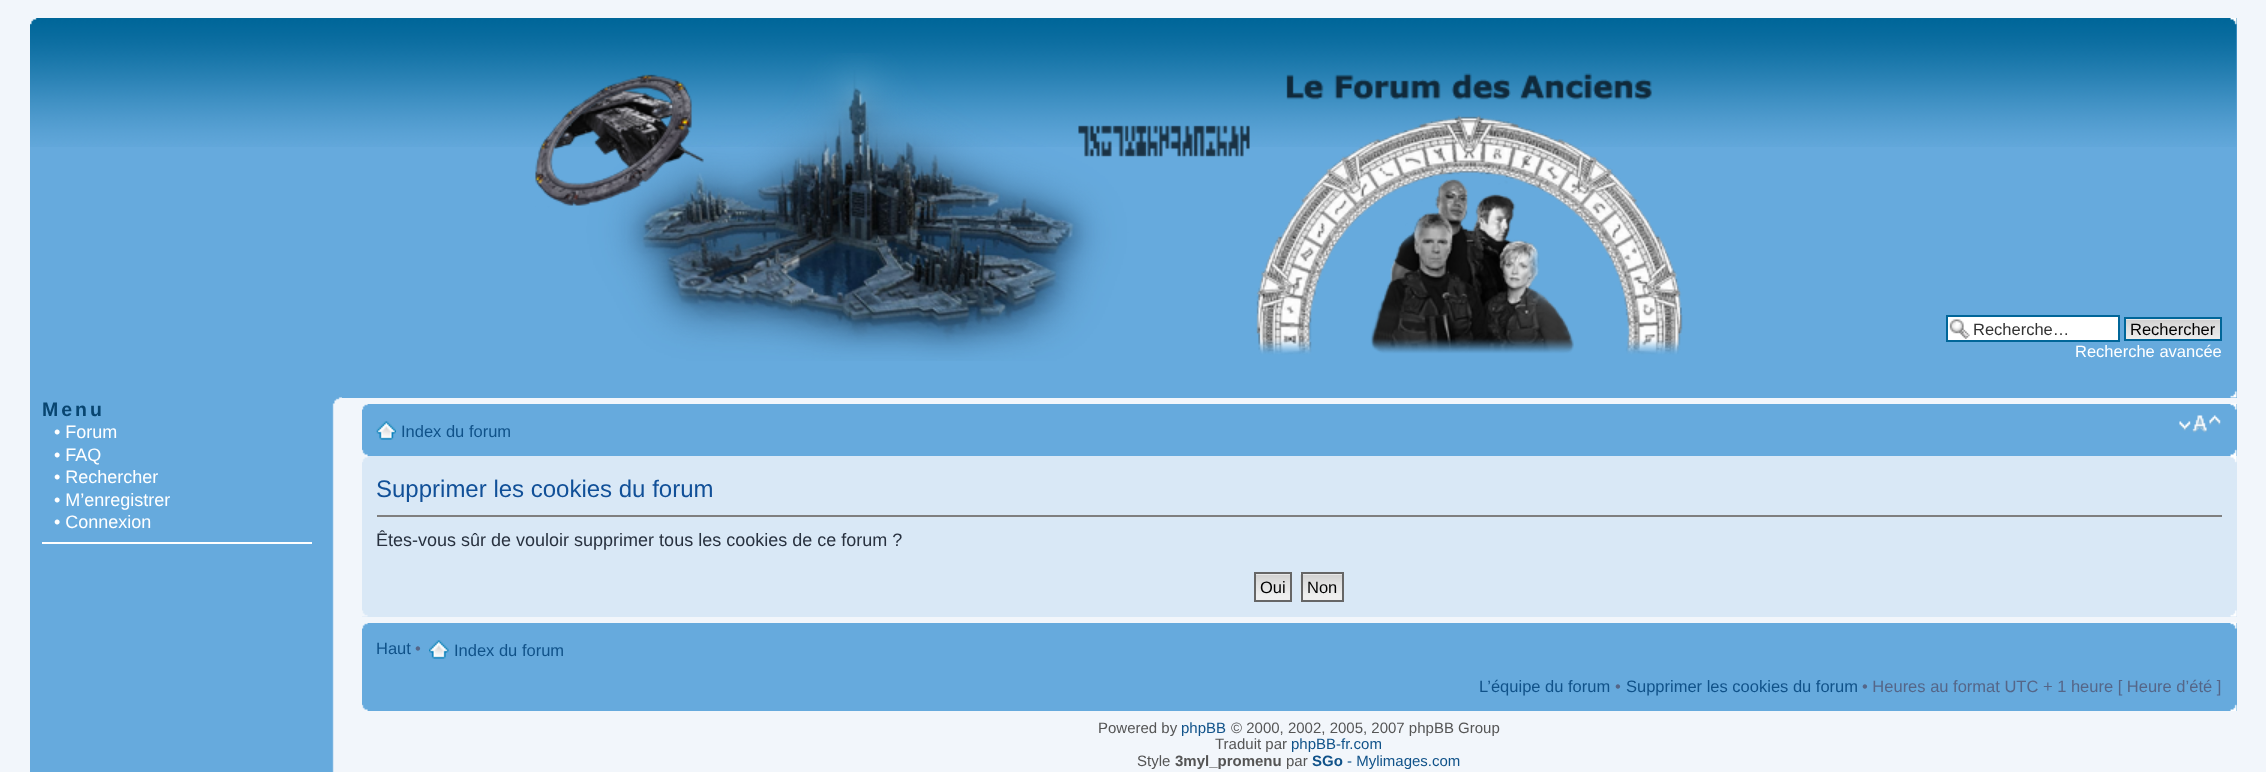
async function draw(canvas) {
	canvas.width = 2266;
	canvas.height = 772;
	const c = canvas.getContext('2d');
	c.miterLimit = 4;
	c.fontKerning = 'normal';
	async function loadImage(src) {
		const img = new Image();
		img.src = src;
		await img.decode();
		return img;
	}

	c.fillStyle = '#f2f6fb';
	c.fillRect(0, 0, 2266, 772);
	c.fillStyle = '#6ad';
	c.fillRect(30, 18, 2207, 380);
	c.drawImage(await loadImage('img1.png'), 30, 18, 2207, 129);
	c.drawImage(await loadImage('img2.png'), 30, 18, 7, 7);
	c.drawImage(await loadImage('img3.png'), 2230, 18, 7, 7);
	c.drawImage(await loadImage('img4.png'), 535, 53, 1148, 308);
	c.fillStyle = '#fff';
	c.fillRect(1948, 317, 170, 23);
	c.drawImage(await loadImage('img5.png'), 1949, 319, 21, 20);
	c.strokeStyle = '#069';
	c.lineWidth = 2;
	c.strokeRect(1947, 316, 172, 25);
	c.font = '16.5px Liberation Sans';
	c.fillStyle = '#333';
	c.fillText('Recherche…', 1973, 335);
	c.drawImage(await loadImage('img6.png'), 2126, 319, 94, 20);
	c.strokeRect(2125, 318, 96, 22);
	c.fillStyle = '#000';
	c.fillText('Rechercher', 2130, 335);
	c.fillStyle = '#fff';
	c.fillText('Recherche avancée', 2075, 357);
	c.drawImage(await loadImage('img7.png'), 2230, 391, 7, 7);
	c.fillStyle = '#6ad';
	c.fillRect(30, 398, 302, 374);
	c.drawImage(await loadImage('img8.png'), 332, 397, 10, 375);
	c.letterSpacing = '3px';
	c.font = 'bold 19.5px Liberation Sans';
	c.fillStyle = '#084570';
	c.fillText('Menu', 42, 416);
	c.letterSpacing = '0px';
	c.font = '18px Liberation Sans';
	c.fillStyle = '#fff';
	for (const [text, x, y] of [
		['• Forum', 54, 438],
		['• FAQ', 54, 461],
		['• Rechercher', 54, 483],
		['• M’enregistrer', 54, 506],
		['• Connexion', 54, 528],
	]) {
		c.fillText(text, x, y);
	}
	c.fillRect(42, 542, 270, 2);
	c.fillStyle = '#6ad';
	c.fillRect(362, 404, 1875, 52);
	c.drawImage(await loadImage('img9.png'), 362, 404, 6, 6);
	c.drawImage(await loadImage('img10.png'), 2230, 403, 7, 7);
	c.drawImage(await loadImage('img11.png'), 376, 421, 20, 19);
	c.font = '16.5px Liberation Sans';
	c.fillStyle = '#105289';
	c.fillText('Index du forum', 401, 437);
	c.drawImage(await loadImage('img12.png'), 2179, 415, 42, 18);
	c.drawImage(await loadImage('img13.png'), 362, 449, 6, 7);
	c.drawImage(await loadImage('img14.png'), 2230, 449, 7, 7);
	c.fillStyle = '#d9e8f6';
	c.fillRect(362, 456, 1875, 161);
	c.drawImage(await loadImage('img15.png'), 362, 456, 6, 7);
	c.drawImage(await loadImage('img16.png'), 2230, 456, 7, 7);
	c.fillStyle = '#7f7f7f';
	c.fillRect(377, 515, 1845, 2);
	c.font = '24px Liberation Sans';
	c.fillStyle = '#115098';
	c.fillText('Supprimer les cookies du forum', 376, 497);
	c.font = '18px Liberation Sans';
	c.fillStyle = '#28313f';
	c.fillText('Êtes-vous sûr de vouloir supprimer tous les cookies de ce forum ?', 376, 546);
	c.drawImage(await loadImage('img17.png'), 1256, 574, 34, 26);
	c.strokeStyle = '#666';
	c.strokeRect(1255, 573, 36, 28);
	c.font = '16.5px Liberation Sans';
	c.fillStyle = '#000';
	c.fillText('Oui', 1260, 593);
	c.drawImage(await loadImage('img18.png'), 1300, 573, 42, 29);
	c.strokeRect(1302, 573, 41, 28);
	c.fillText('Non', 1307, 593);
	c.drawImage(await loadImage('img19.png'), 362, 610, 6, 7);
	c.drawImage(await loadImage('img20.png'), 2230, 610, 7, 7);
	c.fillStyle = '#6ad';
	c.fillRect(362, 623, 1875, 88);
	c.drawImage(await loadImage('img9.png'), 362, 623, 6, 6);
	c.drawImage(await loadImage('img10.png'), 2230, 622, 7, 7);
	c.fillStyle = '#105289';
	c.fillText('Haut', 376, 654);
	c.fillStyle = '#568';
	c.fillText('•', 415, 654);
	c.drawImage(await loadImage('img21.png'), 429, 640, 20, 19);
	c.fillStyle = '#105289';
	c.fillText('Index du forum', 454, 656);
	c.fillText('L’équipe du forum', 1479, 692);
	c.fillStyle = '#568';
	c.fillText('•', 1615, 692);
	c.fillStyle = '#105289';
	c.fillText('Supprimer les cookies du forum', 1626, 692);
	c.fillStyle = '#568';
	c.fillText('• Heures au format UTC + 1 heure [ Heure d’été ]', 1862, 692);
	c.drawImage(await loadImage('img13.png'), 362, 704, 6, 7);
	c.drawImage(await loadImage('img14.png'), 2230, 704, 7, 7);
	c.font = '15px Liberation Sans';
	c.fillStyle = '#555';
	c.fillText('Powered by', 1098, 733);
	c.fillStyle = '#105289';
	c.fillText('phpBB', 1181, 733);
	c.fillStyle = '#555';
	c.fillText('© 2000, 2002, 2005, 2007 phpBB Group', 1231, 733);
	c.fillText('Traduit par', 1215, 749);
	c.fillStyle = '#105289';
	c.fillText('phpBB-fr.com', 1291, 749);
	c.fillStyle = '#555';
	c.fillText('Style', 1137, 766);
	c.font = 'bold 15px Liberation Sans';
	c.fillText('3myl_promenu', 1175, 766);
	c.font = '15px Liberation Sans';
	c.fillText('par', 1286, 766);
	c.font = 'bold 15px Liberation Sans';
	c.fillStyle = '#105289';
	c.fillText('SGo', 1312, 766);
	c.font = '15px Liberation Sans';
	c.fillText('- Mylimages.com', 1347, 766);
}

draw(document.querySelector('canvas'));
